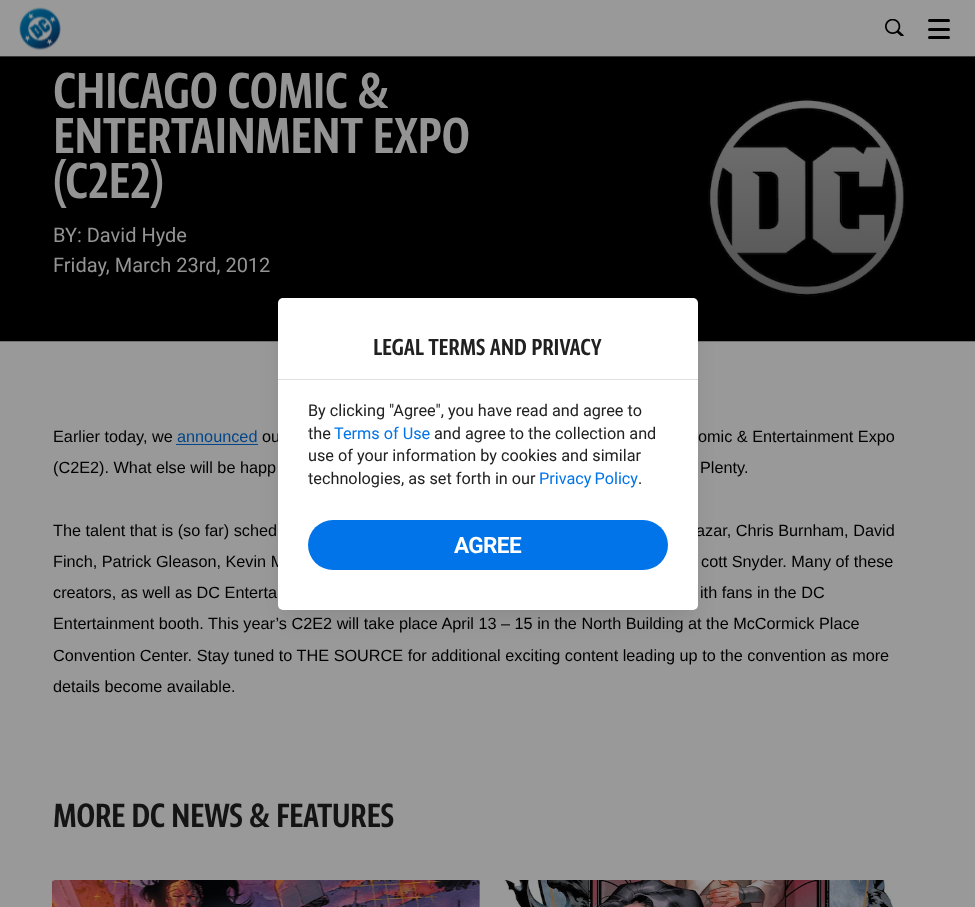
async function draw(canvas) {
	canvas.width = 975;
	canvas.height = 907;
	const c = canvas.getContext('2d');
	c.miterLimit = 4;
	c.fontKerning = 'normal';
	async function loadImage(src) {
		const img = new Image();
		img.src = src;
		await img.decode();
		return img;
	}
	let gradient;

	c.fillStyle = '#999';
	c.fillRect(0, 0, 975, 907);
	c.drawImage(await loadImage('img1.png'), 19, 7, 42, 43);
	c.drawImage(await loadImage('img2.png'), 885, 19, 19, 17);
	c.fillStyle = '#000';
	c.beginPath();
	c.roundRect(928, 19, 22, 3, 1.5);
	c.fill();
	c.beginPath();
	c.roundRect(928, 28, 22, 3, 1.5);
	c.fill();
	c.beginPath();
	c.roundRect(928, 36, 22, 3, 1.5);
	c.fill();
	c.drawImage(await loadImage('img3.png'), 0, 56, 975, 286);
	gradient = c.createLinearGradient(488, -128, 488, 341);
	gradient.addColorStop(0, '#00000000');
	gradient.addColorStop(1, '#00000080');
	c.fillStyle = gradient;
	c.fillRect(0, 56, 975, 241);
	c.letterSpacing = '-0.6px';
	c.font = '600 60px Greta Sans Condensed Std';
	c.fillStyle = '#949494';
	for (const [text, x, y] of [
		['CHICAGO COMIC &', 53, 108],
		['ENTERTAINMENT EXPO', 53, 153],
		['(C2E2)', 53, 198],
	]) {
		c.fillText(text, x, y);
	}
	c.letterSpacing = '0px';
	c.font = '20px Roboto';
	c.fillText('BY: David Hyde', 53, 242);
	c.fillText('Friday, March 23rd, 2012', 53, 272);
	c.font = '16.25px Liberation Sans';
	c.fillStyle = '#000';
	c.fillText('Earlier today, we', 53, 442);
	c.fillStyle = '#00468b';
	c.fillText('announced', 177, 442);
	c.fillRect(176, 444, 82, 1);
	c.fillStyle = '#000';
	for (const [text, x, y] of [
		['ou', 262, 442],
		['omic & Entertainment Expo', 698, 442],
		['(C2E2). What else will be happ', 53, 473],
		['Plenty.', 700, 473],
		['The talent that is (so far) sched', 53, 536],
		['azar, Chris Burnham, David', 696, 536],
		['Finch, Patrick Gleason, Kevin M', 53, 567],
		['cott Snyder. Many of these', 701, 567],
		['creators, as well as DC Enterta', 53, 598],
		['ith fans in the DC', 700, 598],
		['Entertainment booth. This year’s C2E2 will take place April 13 – 15 in the North Building at the McCormick Place', 53, 629],
		['Convention Center. Stay tuned to THE SOURCE for additional exciting content leading up to the convention as more', 53, 661],
		['details become available.', 53, 692],
	]) {
		c.fillText(text, x, y);
	}
	c.letterSpacing = '-0.6px';
	c.font = '600 40px Greta Sans Condensed Std';
	c.fillStyle = '#141414';
	c.fillText('MORE DC NEWS & FEATURES', 53, 827);
	c.drawImage(await loadImage('img4.png'), 52, 880, 428, 27);
	c.drawImage(await loadImage('img5.png'), 504, 880, 389, 27);
	c.fillStyle = '#0000001a';
	c.filter = 'blur(12.5px)';
	c.beginPath();
	c.rect(284, 316, 407, 300);
	c.fill();
	c.filter = 'none';
	c.fillStyle = '#fff';
	c.beginPath();
	c.roundRect(278, 298, 420, 312, 5);
	c.fill();
	c.fillStyle = '#dfdfdf';
	c.fillRect(278, 379, 420, 1);
	c.letterSpacing = '-0.25px';
	c.font = '600 27.5px Greta Sans Condensed Std';
	c.fillStyle = '#212121';
	c.fillText('LEGAL TERMS AND PRIVACY', 373, 355);
	c.letterSpacing = '0px';
	c.font = '16.25px Roboto';
	c.fillText('By clicking "Agree", you have read and agree to', 308, 416);
	c.fillText('the', 308, 439);
	c.fillStyle = '#0074e8';
	c.fillText('Terms of Use', 334, 439);
	c.fillStyle = '#212121';
	for (const [text, x, y] of [
		['and agree to the collection and', 434, 439],
		['use of your information by cookies and similar', 308, 461],
		['technologies, as set forth in our', 308, 484],
	]) {
		c.fillText(text, x, y);
	}
	c.wordSpacing = '-1px';
	c.fillStyle = '#0074e8';
	c.fillText('Privacy Policy', 539, 484);
	c.wordSpacing = '0px';
	c.fillStyle = '#212121';
	c.fillText('.', 638, 484);
	c.fillStyle = '#0074e8';
	c.beginPath();
	c.roundRect(308, 520, 360, 50, 25);
	c.fill();
	c.letterSpacing = '-0.6px';
	c.font = 'bold 22.5px Roboto';
	c.fillStyle = '#fff';
	c.fillText('AGREE', 454, 553);
}

draw(document.querySelector('canvas'));
